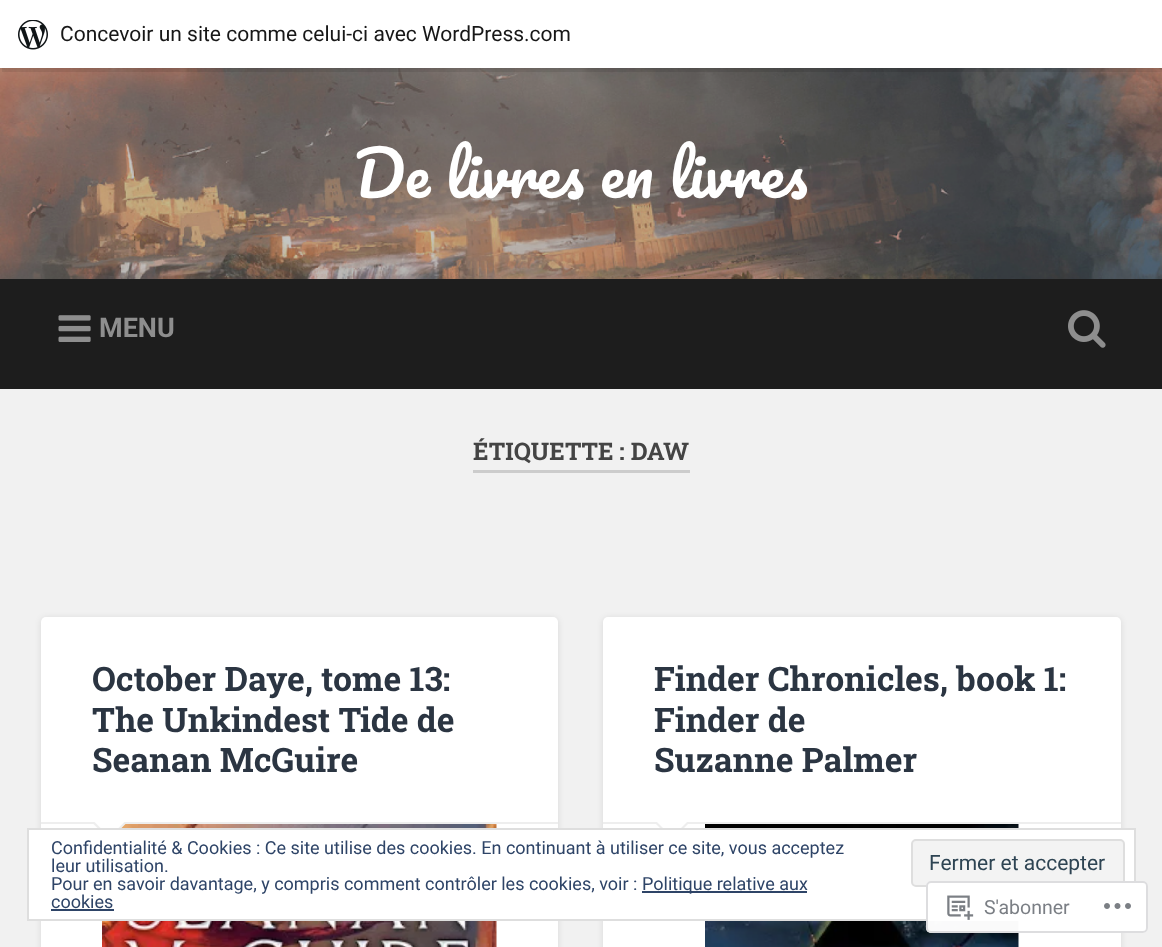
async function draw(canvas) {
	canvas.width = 1162;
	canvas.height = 947;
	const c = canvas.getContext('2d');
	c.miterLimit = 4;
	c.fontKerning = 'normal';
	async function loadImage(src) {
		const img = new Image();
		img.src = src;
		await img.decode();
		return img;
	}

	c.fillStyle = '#f1f1f1';
	c.fillRect(0, 0, 1162, 947);
	c.drawImage(await loadImage('img2.png'), 0, 68, 1162, 211);
	c.fillStyle = '#0000000d';
	c.filter = 'blur(1.5px)';
	c.beginPath();
	c.rect(0, 2, 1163, 67);
	c.fill();
	c.filter = 'none';
	c.fillStyle = '#00000014';
	c.beginPath();
	c.moveTo(2, 68);
	c.lineTo(2, 72);
	c.lineTo(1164, 72);
	c.lineTo(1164, 5);
	c.lineTo(1162, 5);
	c.lineTo(1162, 68);
	c.closePath();
	c.fill();
	c.fillStyle = '#fff';
	c.fillRect(0, 0, 1162, 68);
	c.drawImage(await loadImage('img1.png'), 18, 20, 30, 30);
	c.font = '21px Roboto';
	c.fillStyle = '#171717';
	c.fillText('Concevoir un site comme celui-ci avec WordPress.com', 60, 41);
	c.font = '60.75px Pacifico';
	c.fillStyle = '#fff';
	c.fillText('De livres en livres', 354, 198);
	c.fillStyle = '#1d1d1d';
	c.fillRect(0, 279, 1162, 110);
	c.drawImage(await loadImage('img3.png'), 58, 315, 33, 27);
	c.font = 'bold 27px Roboto';
	c.fillStyle = '#8e8e8e';
	c.fillText('MENU', 99, 337);
	c.drawImage(await loadImage('img4.png'), 1068, 310, 38, 38);
	c.fillStyle = '#ccc';
	c.fillRect(473, 470, 217, 3);
	c.font = 'bold 24.25px Roboto Slab';
	c.fillStyle = '#444';
	c.fillText('ÉTIQUETTE : DAW', 473, 460);
	c.fillStyle = '#0000001a';
	c.filter = 'blur(3px)';
	c.beginPath();
	c.roundRect(41, 618, 517, 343, 5);
	c.fill();
	c.filter = 'none';
	c.fillStyle = '#fff';
	c.beginPath();
	c.roundRect(41, 617, 517, 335, 5);
	c.fill();
	c.fillStyle = '#eee';
	c.fillRect(41, 822, 517, 2);
	c.font = 'bold 33.75px Roboto Slab';
	c.fillStyle = '#2b3542';
	for (const [text, x, y] of [
		['October Daye, tome 13:', 92, 691],
		['The Unkindest Tide de', 92, 732],
		['Seanan McGuire', 92, 772],
	]) {
		c.fillText(text, x, y);
	}
	c.drawImage(await loadImage('img5.png'), 102, 824, 395, 123);
	c.fillStyle = '#eee';
	c.beginPath();
	c.moveTo(91.5, 822);
	c.lineTo(127.5, 822);
	c.lineTo(109.5, 840);
	c.closePath();
	c.fill();
	c.fillStyle = '#fff';
	c.beginPath();
	c.moveTo(93, 820.5);
	c.lineTo(126, 820.5);
	c.lineTo(109.5, 837);
	c.closePath();
	c.fill();
	c.fillStyle = '#0000001a';
	c.filter = 'blur(3px)';
	c.beginPath();
	c.roundRect(603, 618, 518, 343, 5);
	c.fill();
	c.filter = 'none';
	c.fillStyle = '#fff';
	c.beginPath();
	c.roundRect(603, 617, 518, 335, 5);
	c.fill();
	c.fillStyle = '#eee';
	c.fillRect(603, 822, 518, 2);
	c.fillStyle = '#2b3542';
	for (const [text, x, y] of [
		['Finder Chronicles, book 1:', 654, 691],
		['Finder de', 654, 732],
		['Suzanne Palmer', 654, 772],
	]) {
		c.fillText(text, x, y);
	}
	c.fillStyle = '#eee';
	c.beginPath();
	c.moveTo(654, 822);
	c.lineTo(690, 822);
	c.lineTo(672, 840);
	c.closePath();
	c.fill();
	c.fillStyle = '#fff';
	c.beginPath();
	c.moveTo(655.5, 820.5);
	c.lineTo(688.5, 820.5);
	c.lineTo(672, 837);
	c.closePath();
	c.fill();
	c.drawImage(await loadImage('img6.png'), 705, 824, 314, 123);
	c.beginPath();
	c.rect(28, 829, 1107, 91);
	c.fill();
	c.strokeStyle = '#dedede';
	c.lineWidth = 2;
	c.stroke();
	c.font = '18px Roboto';
	c.fillStyle = '#2e4467';
	c.fillText('Confidentialité & Cookies : Ce site utilise des cookies. En continuant à utiliser ce site, vous acceptez', 51, 854);
	c.fillText('leur utilisation.', 51, 872);
	c.fillStyle = '#f3f3f3';
	c.beginPath();
	c.roundRect(912, 840, 212, 46, 4);
	c.fill();
	c.stroke();
	c.font = '21px Roboto';
	c.fillStyle = '#2e4453';
	c.fillText('Fermer et accepter', 929, 870);
	c.font = '18px Roboto';
	c.fillStyle = '#2e4467';
	c.fillText('Pour en savoir davantage, y compris comment contrôler les cookies, voir :', 51, 890);
	c.fillRect(642, 891, 165, 2);
	c.fillText('Politique relative aux', 642, 890);
	c.fillText('cookies', 51, 908);
	c.fillRect(51, 909, 63, 2);
	c.fillStyle = '#fffffffa';
	c.beginPath();
	c.roundRect(926, 881, 222, 52, 5);
	c.fill();
	c.beginPath();
	c.roundRect(927, 882, 220, 50, 4);
	c.strokeStyle = '#dcdcdefa';
	c.stroke();
	c.drawImage(await loadImage('img7.png'), 947, 895, 27, 25);
	c.font = '19.5px Roboto';
	c.fillStyle = '#7b7f85';
	c.fillText('S\'abonner', 984, 914);
	c.drawImage(await loadImage('img8.png'), 1104, 903, 27, 6);
}

draw(document.querySelector('canvas'));
